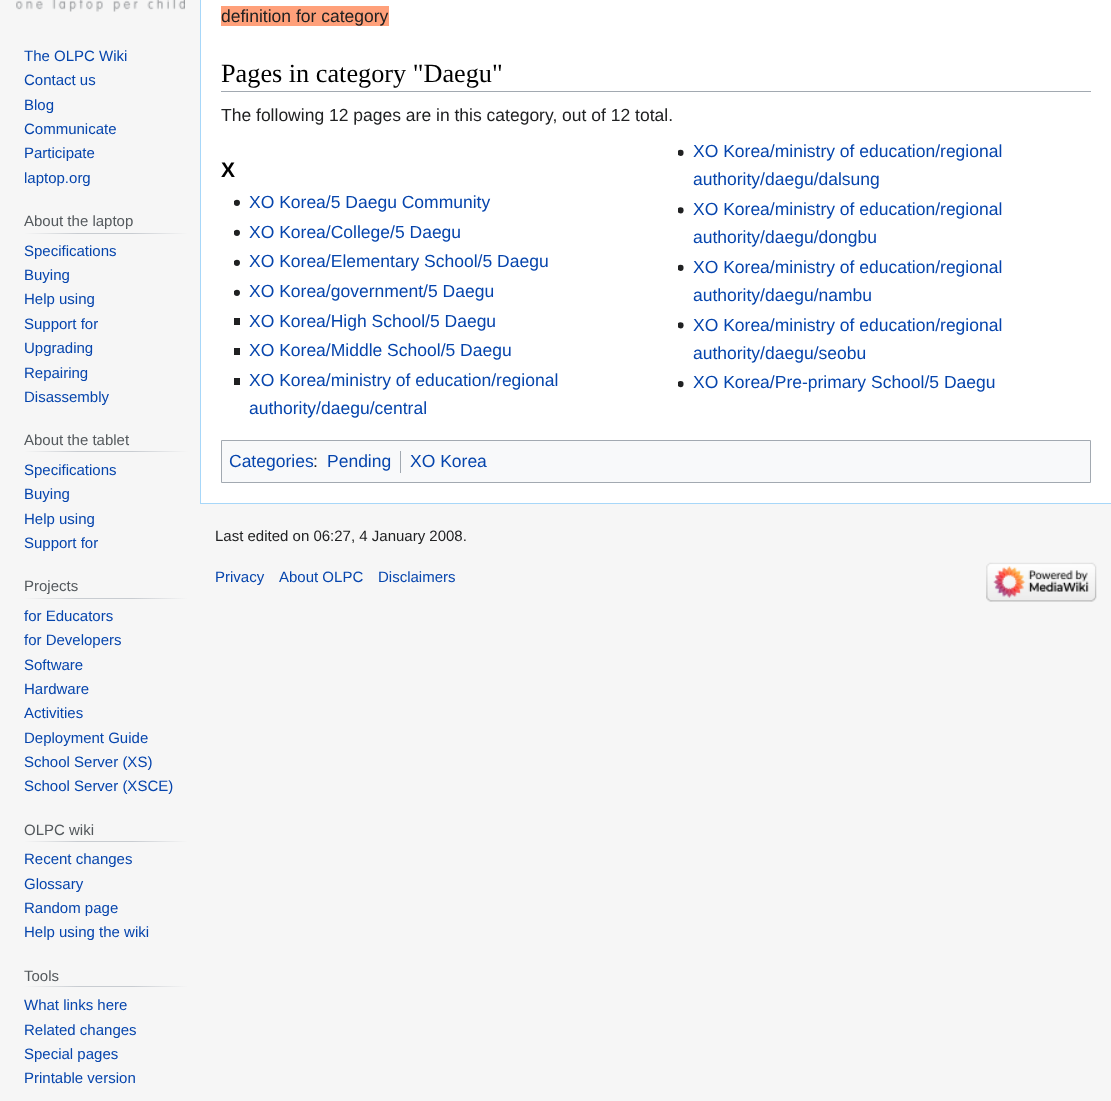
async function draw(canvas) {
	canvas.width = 1111;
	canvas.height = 1101;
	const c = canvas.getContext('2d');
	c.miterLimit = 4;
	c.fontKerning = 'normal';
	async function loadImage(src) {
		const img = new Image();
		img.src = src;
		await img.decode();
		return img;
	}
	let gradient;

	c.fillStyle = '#f6f6f6';
	c.fillRect(0, 0, 1111, 1101);
	c.drawImage(await loadImage('img1.png'), 16, 0, 169, 12);
	c.font = '15px Liberation Sans';
	c.fillStyle = '#0645ad';
	for (const [text, x, y] of [
		['The OLPC Wiki', 24, 61],
		['Contact us', 24, 85],
		['Blog', 24, 110],
		['Communicate', 24, 134],
		['Participate', 24, 158],
		['laptop.org', 24, 183],
	]) {
		c.fillText(text, x, y);
	}
	gradient = c.createLinearGradient(24, 233, 188, 233);
	gradient.addColorStop(0, '#f6f6f6');
	gradient.addColorStop(0.33, '#c8ccd1');
	gradient.addColorStop(0.66, '#c8ccd1');
	gradient.addColorStop(1, '#f6f6f6');
	c.fillStyle = gradient;
	c.fillRect(24, 233, 164, 1);
	c.fillStyle = '#54595d';
	c.fillText('About the laptop', 24, 226);
	c.fillStyle = '#0645ad';
	for (const [text, x, y] of [
		['Specifications', 24, 256],
		['Buying', 24, 280],
		['Help using', 24, 304],
		['Support for', 24, 329],
		['Upgrading', 24, 353],
		['Repairing', 24, 378],
		['Disassembly', 24, 402],
	]) {
		c.fillText(text, x, y);
	}
	gradient = c.createLinearGradient(24, 452, 188, 452);
	gradient.addColorStop(0, '#f6f6f6');
	gradient.addColorStop(0.33, '#c8ccd1');
	gradient.addColorStop(0.66, '#c8ccd1');
	gradient.addColorStop(1, '#f6f6f6');
	c.fillStyle = gradient;
	c.fillRect(24, 451, 164, 1);
	c.fillStyle = '#54595d';
	c.fillText('About the tablet', 24, 445);
	c.fillStyle = '#0645ad';
	for (const [text, x, y] of [
		['Specifications', 24, 475],
		['Buying', 24, 499],
		['Help using', 24, 524],
		['Support for', 24, 548],
	]) {
		c.fillText(text, x, y);
	}
	gradient = c.createLinearGradient(24, 598, 188, 598);
	gradient.addColorStop(0, '#f6f6f6');
	gradient.addColorStop(0.33, '#c8ccd1');
	gradient.addColorStop(0.66, '#c8ccd1');
	gradient.addColorStop(1, '#f6f6f6');
	c.fillStyle = gradient;
	c.fillRect(24, 598, 164, 1);
	c.fillStyle = '#54595d';
	c.fillText('Projects', 24, 591);
	c.fillStyle = '#0645ad';
	for (const [text, x, y] of [
		['for Educators', 24, 621],
		['for Developers', 24, 645],
		['Software', 24, 670],
		['Hardware', 24, 694],
		['Activities', 24, 718],
		['Deployment Guide', 24, 743],
		['School Server (XS)', 24, 767],
		['School Server (XSCE)', 24, 791],
	]) {
		c.fillText(text, x, y);
	}
	gradient = c.createLinearGradient(24, 842, 188, 842);
	gradient.addColorStop(0, '#f6f6f6');
	gradient.addColorStop(0.33, '#c8ccd1');
	gradient.addColorStop(0.66, '#c8ccd1');
	gradient.addColorStop(1, '#f6f6f6');
	c.fillStyle = gradient;
	c.fillRect(24, 841, 164, 1);
	c.fillStyle = '#54595d';
	c.fillText('OLPC wiki', 24, 835);
	c.fillStyle = '#0645ad';
	for (const [text, x, y] of [
		['Recent changes', 24, 864],
		['Glossary', 24, 889],
		['Random page', 24, 913],
		['Help using the wiki', 24, 937],
	]) {
		c.fillText(text, x, y);
	}
	gradient = c.createLinearGradient(24, 987, 188, 987);
	gradient.addColorStop(0, '#f6f6f6');
	gradient.addColorStop(0.33, '#c8ccd1');
	gradient.addColorStop(0.66, '#c8ccd1');
	gradient.addColorStop(1, '#f6f6f6');
	c.fillStyle = gradient;
	c.fillRect(24, 986, 164, 1);
	c.fillStyle = '#54595d';
	c.fillText('Tools', 24, 981);
	c.fillStyle = '#0645ad';
	for (const [text, x, y] of [
		['What links here', 24, 1010],
		['Related changes', 24, 1035],
		['Special pages', 24, 1059],
		['Printable version', 24, 1083],
	]) {
		c.fillText(text, x, y);
	}
	for (const [x, y, w, h, color] of [
		[201, 0, 910, 503, '#fff'],
		[200, 503, 911, 1, '#a7d7f9'],
		[200, 0, 1, 504, '#a7d7f9'],
		[221, 6, 168, 20, '#ffa07a'],
	]) {
		c.fillStyle = color;
		c.fillRect(x, y, w, h);
	}
	c.font = '17.5px Liberation Sans';
	c.fillStyle = '#202122';
	c.fillText('definition for category', 221, 22);
	c.fillStyle = '#a2a9b1';
	c.fillRect(221, 91, 870, 1);
	c.font = '26.25px Liberation Serif';
	c.fillStyle = '#000';
	c.fillText('Pages in category "Daegu"', 221, 82);
	c.font = '17.5px Liberation Sans';
	c.fillStyle = '#202122';
	c.fillText('The following 12 pages are in this category, out of 12 total.', 221, 121);
	c.font = 'bold 21px Liberation Sans';
	c.fillStyle = '#000';
	c.fillText('X', 221, 177);
	c.drawImage(await loadImage('img2.png'), 678, 149, 6, 7);
	c.font = '17.5px Liberation Sans';
	c.fillStyle = '#0645ad';
	c.fillText('XO Korea/ministry of education/regional', 693, 157);
	c.fillText('authority/daegu/dalsung', 693, 185);
	c.drawImage(await loadImage('img3.png'), 234, 199, 6, 7);
	c.fillText('XO Korea/5 Daegu Community', 249, 208);
	c.drawImage(await loadImage('img4.png'), 678, 207, 6, 7);
	c.fillText('XO Korea/ministry of education/regional', 693, 215);
	c.fillText('authority/daegu/dongbu', 693, 243);
	c.drawImage(await loadImage('img3.png'), 234, 229, 6, 7);
	c.fillText('XO Korea/College/5 Daegu', 249, 238);
	c.drawImage(await loadImage('img3.png'), 234, 259, 6, 7);
	c.fillText('XO Korea/Elementary School/5 Daegu', 249, 267);
	c.drawImage(await loadImage('img2.png'), 678, 264, 6, 7);
	c.fillText('XO Korea/ministry of education/regional', 693, 273);
	c.fillText('authority/daegu/nambu', 693, 301);
	c.drawImage(await loadImage('img3.png'), 234, 289, 6, 7);
	c.fillText('XO Korea/government/5 Daegu', 249, 297);
	c.fillStyle = '#202122';
	c.fillRect(234, 318, 6, 7);
	c.fillStyle = '#0645ad';
	c.fillText('XO Korea/High School/5 Daegu', 249, 327);
	c.drawImage(await loadImage('img5.png'), 678, 322, 6, 7);
	c.fillText('XO Korea/ministry of education/regional', 693, 331);
	c.fillText('authority/daegu/seobu', 693, 359);
	c.fillStyle = '#202122';
	c.fillRect(234, 348, 6, 7);
	c.fillStyle = '#0645ad';
	c.fillText('XO Korea/Middle School/5 Daegu', 249, 356);
	c.fillStyle = '#202122';
	c.fillRect(234, 378, 6, 7);
	c.fillStyle = '#0645ad';
	c.fillText('XO Korea/ministry of education/regional', 249, 386);
	c.fillText('authority/daegu/central', 249, 414);
	c.drawImage(await loadImage('img6.png'), 678, 381, 6, 7);
	c.fillText('XO Korea/Pre-primary School/5 Daegu', 693, 388);
	c.fillStyle = '#f8f9fa';
	c.beginPath();
	c.rect(221.5, 440.5, 869, 42);
	c.fill();
	c.strokeStyle = '#a2a9b1';
	c.stroke();
	c.fillStyle = '#0645ad';
	c.fillText('Categories', 229, 467);
	c.fillStyle = '#202122';
	c.fillText(':', 313, 467);
	c.fillStyle = '#0645ad';
	c.fillText('Pending', 327, 467);
	c.fillStyle = '#a2a9b1';
	c.fillRect(400, 451, 1, 22);
	c.fillStyle = '#0645ad';
	c.fillText('XO Korea', 410, 467);
	c.font = '15px Liberation Sans';
	c.fillStyle = '#202122';
	c.fillText('Last edited on 06:27, 4 January 2008.', 215, 541);
	c.fillStyle = '#0645ad';
	for (const [text, x, y] of [
		['Privacy', 215, 582],
		['About OLPC', 279, 582],
		['Disclaimers', 378, 582],
	]) {
		c.fillText(text, x, y);
	}
	c.drawImage(await loadImage('img7.png'), 986, 562, 111, 40);
}

draw(document.querySelector('canvas'));
